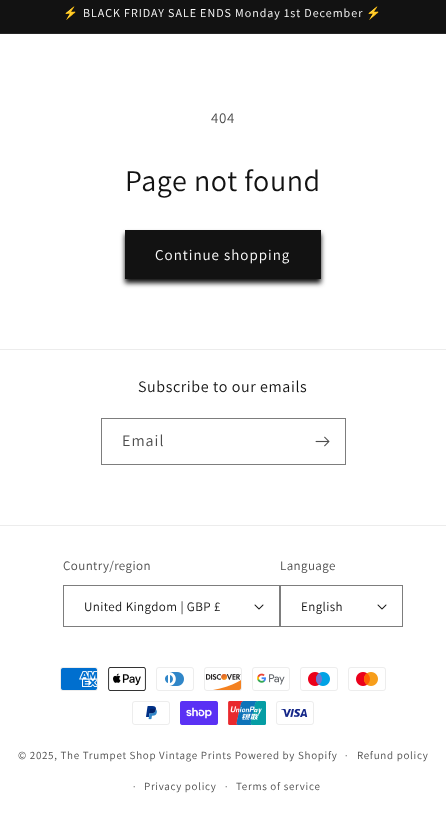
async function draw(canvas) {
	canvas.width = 446;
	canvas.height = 829;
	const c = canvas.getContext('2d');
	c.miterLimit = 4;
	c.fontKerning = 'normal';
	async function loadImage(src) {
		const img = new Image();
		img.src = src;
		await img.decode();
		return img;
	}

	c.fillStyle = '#fff';
	c.fillRect(0, 0, 446, 829);
	c.fillStyle = '#121212';
	c.fillRect(0, 0, 446, 33);
	c.fillStyle = '#252525';
	c.fillRect(0, 33, 446, 1);
	c.letterSpacing = '1px';
	c.font = '12px Noto Color Emoji';
	c.fillStyle = '#fff';
	c.fillText('⚡️', 63, 17);
	c.wordSpacing = '-0.25px';
	c.font = '12px Assistant';
	c.fillText('BLACK FRIDAY SALE ENDS Monday 1st December', 83, 17);
	c.wordSpacing = '0px';
	c.font = '12px Noto Color Emoji';
	c.fillText('⚡️', 366, 17);
	c.letterSpacing = '0.6px';
	c.font = '15px Assistant';
	c.fillStyle = '#4d4d4d';
	c.fillText('404', 211, 123);
	c.font = '30px Assistant';
	c.fillStyle = '#121212';
	c.fillText('Page not found', 125, 191);
	c.filter = 'blur(2.5px)';
	c.beginPath();
	c.rect(125, 234, 196, 49);
	c.fill();
	c.filter = 'none';
	c.fillRect(125, 230, 196, 49);
	c.letterSpacing = '1px';
	c.font = '15px Assistant';
	c.fillStyle = '#fff';
	c.fillText('Continue shopping', 155, 260);
	c.fillStyle = '#ececec';
	c.fillRect(0, 349, 446, 1);
	c.letterSpacing = '0.6px';
	c.font = '16px Assistant';
	c.fillStyle = '#121212';
	c.fillText('Subscribe to our emails', 138, 392);
	c.strokeStyle = '#7d7d7d';
	c.strokeRect(101.5, 418.5, 244, 46);
	c.letterSpacing = '1px';
	c.fillStyle = '#4d4d4d';
	c.fillText('Email', 122, 446);
	c.drawImage(await loadImage('img1.png'), 315, 436, 15, 11);
	c.fillStyle = '#ececec';
	c.fillRect(0, 525, 446, 1);
	c.letterSpacing = '0.4px';
	c.font = '13px Assistant';
	c.fillStyle = '#4d4d4d';
	c.fillText('Country/region', 63, 570);
	c.drawImage(await loadImage('img2.png'), 254, 604, 10, 6);
	c.strokeRect(63.5, 585.5, 216, 41);
	c.fillStyle = '#121212';
	c.fillText('United Kingdom | GBP £', 84, 611);
	c.fillStyle = '#4d4d4d';
	c.fillText('Language', 280, 570);
	c.drawImage(await loadImage('img2.png'), 377, 604, 10, 6);
	c.strokeRect(280.5, 585.5, 122, 41);
	c.fillStyle = '#121212';
	c.fillText('English', 301, 611);
	c.drawImage(await loadImage('img3.png'), 60, 667, 38, 24);
	c.drawImage(await loadImage('img4.png'), 108, 667, 38, 24);
	c.drawImage(await loadImage('img5.png'), 156, 667, 38, 24);
	c.drawImage(await loadImage('img6.png'), 204, 667, 38, 24);
	c.drawImage(await loadImage('img7.png'), 252, 667, 38, 24);
	c.drawImage(await loadImage('img8.png'), 300, 667, 38, 24);
	c.drawImage(await loadImage('img9.png'), 348, 667, 38, 24);
	c.drawImage(await loadImage('img10.png'), 132, 701, 38, 24);
	c.drawImage(await loadImage('img11.png'), 180, 701, 38, 24);
	c.drawImage(await loadImage('img12.png'), 228, 701, 38, 24);
	c.drawImage(await loadImage('img13.png'), 276, 701, 38, 24);
	c.letterSpacing = '0.7px';
	c.font = '11px Assistant';
	c.fillStyle = '#4d4d4d';
	c.fillText('© 2025, The Trumpet Shop Vintage Prints Powered by Shopify', 18, 759);
	c.font = '10px Assistant';
	c.fillText('·', 345, 759);
	c.font = '11px Assistant';
	c.fillText('Refund policy', 357, 759);
	c.font = '10px Assistant';
	c.fillText('·', 133, 790);
	c.font = '11px Assistant';
	c.fillText('Privacy policy', 144, 790);
	c.font = '10px Assistant';
	c.fillText('·', 225, 790);
	c.font = '11px Assistant';
	c.fillText('Terms of service', 236, 790);
}

draw(document.querySelector('canvas'));
